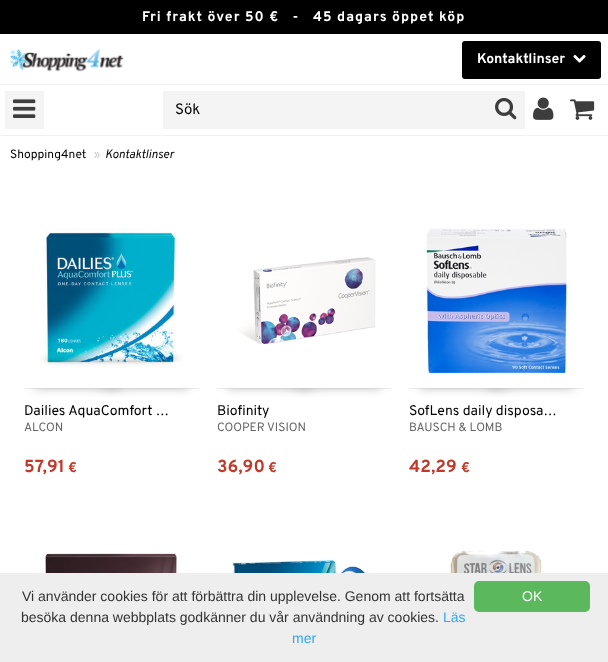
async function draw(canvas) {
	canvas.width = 608;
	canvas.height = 662;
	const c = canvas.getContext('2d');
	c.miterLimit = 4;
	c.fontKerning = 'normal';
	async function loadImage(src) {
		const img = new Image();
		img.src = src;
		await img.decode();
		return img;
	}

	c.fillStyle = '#fff';
	c.fillRect(0, 0, 608, 662);
	c.fillStyle = '#000';
	c.fillRect(0, 0, 608, 34);
	c.letterSpacing = '1px';
	c.font = 'bold 14px Overpass';
	c.fillStyle = '#fff';
	c.fillText('Fri frakt över 50 €   -', 142, 21);
	c.fillText('45 dagars öppet köp', 313, 21);
	c.fillStyle = '#f1f1f1';
	c.fillRect(0, 84, 608, 1);
	c.fillRect(0, 135, 608, 1);
	c.fillStyle = '#000';
	c.beginPath();
	c.roundRect(462, 41, 139, 38, 3);
	c.fill();
	c.letterSpacing = '0px';
	c.fillStyle = '#fff';
	c.fillText('Kontaktlinser', 477, 63);
	c.drawImage(await loadImage('img1.png'), 573, 55, 13, 8);
	c.drawImage(await loadImage('img2.png'), 9, 49, 115, 23);
	c.fillStyle = '#f4f4f4';
	c.fillRect(5, 91, 39, 38);
	c.drawImage(await loadImage('img3.png'), 13, 99, 23, 19);
	c.fillRect(163, 91, 362, 38);
	c.font = '15px Overpass';
	c.fillStyle = '#000';
	c.fillText('Sök', 175, 114);
	c.drawImage(await loadImage('img4.png'), 495, 97, 22, 23);
	c.drawImage(await loadImage('img5.png'), 533, 97, 21, 23);
	c.drawImage(await loadImage('img6.png'), 570, 99, 25, 21);
	c.font = '12px Overpass';
	c.fillText('Shopping4net', 10, 158);
	c.fillStyle = '#ccc';
	c.fillText('»', 94, 158);
	c.font = 'italic 12px Overpass';
	c.fillStyle = '#000';
	c.fillText('Kontaktlinser', 105, 158);
	c.fillStyle = '#eee';
	c.fillRect(24, 388, 175, 1);
	c.fillStyle = '#bbb';
	c.filter = 'blur(5px)';
	c.beginPath();
	c.rect(34, 368, 87, 20);
	c.fill();
	c.filter = 'none';
	c.fillStyle = '#fff';
	c.beginPath();
	c.moveTo(34, 355);
	c.lineTo(121, 350);
	c.lineTo(122, 370);
	c.lineTo(35, 375);
	c.closePath();
	c.fill();
	c.fillStyle = '#bbb';
	c.filter = 'blur(5px)';
	c.beginPath();
	c.rect(101, 368, 88, 20);
	c.fill();
	c.filter = 'none';
	c.fillStyle = '#fff';
	c.beginPath();
	c.moveTo(102, 350);
	c.lineTo(189, 355);
	c.lineTo(188, 375);
	c.lineTo(101, 370);
	c.closePath();
	c.fill();
	c.strokeStyle = '#fff';
	c.lineWidth = 15;
	c.strokeRect(31.5, 220.5, 160, 160);
	c.drawImage(await loadImage('img7.png'), 40, 228, 142, 145);
	c.font = '14px Overpass';
	c.fillStyle = '#000';
	c.fillText('Dailies AquaComfort …', 24, 415);
	c.font = '12px Overpass';
	c.fillStyle = '#666';
	c.fillText('ALCON', 24, 431);
	c.font = 'bold 17.5px Overpass';
	c.fillStyle = '#c0392b';
	c.fillText('57,91', 24, 472);
	c.font = 'bold 14px Overpass';
	c.fillText('€', 68, 472);
	c.fillStyle = '#eee';
	c.fillRect(217, 388, 174, 1);
	c.fillStyle = '#bbb';
	c.filter = 'blur(5px)';
	c.beginPath();
	c.rect(227, 368, 87, 20);
	c.fill();
	c.filter = 'none';
	c.fillStyle = '#fff';
	c.beginPath();
	c.moveTo(226, 355);
	c.lineTo(313, 350);
	c.lineTo(314, 370);
	c.lineTo(227, 375);
	c.closePath();
	c.fill();
	c.fillStyle = '#bbb';
	c.filter = 'blur(5px)';
	c.beginPath();
	c.rect(294, 368, 87, 20);
	c.fill();
	c.filter = 'none';
	c.strokeRect(224.5, 220.5, 159, 160);
	c.drawImage(await loadImage('img8.png'), 236, 257, 140, 116);
	c.font = '14px Overpass';
	c.fillStyle = '#000';
	c.fillText('Biofinity', 217, 415);
	c.font = '12px Overpass';
	c.fillStyle = '#666';
	c.fillText('COOPER VISION', 217, 431);
	c.font = 'bold 17.5px Overpass';
	c.fillStyle = '#c0392b';
	c.fillText('36,90', 217, 472);
	c.font = 'bold 14px Overpass';
	c.fillText('€', 268, 472);
	c.fillStyle = '#eee';
	c.fillRect(409, 388, 175, 1);
	c.fillStyle = '#bbb';
	c.filter = 'blur(5px)';
	c.beginPath();
	c.rect(419, 368, 88, 20);
	c.fill();
	c.filter = 'none';
	c.fillStyle = '#fff';
	c.beginPath();
	c.moveTo(419, 355);
	c.lineTo(506, 350);
	c.lineTo(507, 370);
	c.lineTo(420, 375);
	c.closePath();
	c.fill();
	c.fillStyle = '#bbb';
	c.filter = 'blur(5px)';
	c.beginPath();
	c.rect(487, 368, 87, 20);
	c.fill();
	c.filter = 'none';
	c.fillStyle = '#fff';
	c.beginPath();
	c.moveTo(487, 350);
	c.lineTo(574, 355);
	c.lineTo(573, 375);
	c.lineTo(486, 370);
	c.closePath();
	c.fill();
	c.strokeRect(416.5, 220.5, 160, 160);
	c.drawImage(await loadImage('img9.png'), 426, 228, 141, 145);
	c.font = '14px Overpass';
	c.fillStyle = '#000';
	c.fillText('SofLens daily disposa…', 409, 415);
	c.font = '12px Overpass';
	c.fillStyle = '#666';
	c.fillText('BAUSCH & LOMB', 409, 431);
	c.font = 'bold 17.5px Overpass';
	c.fillStyle = '#c0392b';
	c.fillText('42,29', 409, 472);
	c.font = 'bold 14px Overpass';
	c.fillText('€', 461, 472);
	c.drawImage(await loadImage('img10.png'), 44, 552, 137, 21);
	c.drawImage(await loadImage('img11.png'), 232, 559, 144, 14);
	c.drawImage(await loadImage('img12.png'), 448, 550, 94, 23);
	c.fillStyle = '#eee';
	c.fillRect(0, 573, 608, 89);
	c.font = '14px Liberation Sans';
	c.fillStyle = '#333';
	c.fillText('Vi använder cookies för att förbättra din upplevelse. Genom att fortsätta', 22, 601);
	c.fillText('besöka denna webbplats godkänner du vår användning av cookies.', 21, 622);
	c.fillStyle = '#31a8f0';
	c.fillText('Läs', 443, 622);
	c.fillText('mer', 292, 643);
	c.fillStyle = '#5cb85c';
	c.beginPath();
	c.roundRect(474, 581, 116, 31, 5);
	c.fill();
	c.fillStyle = '#fff';
	c.fillText('OK', 522, 601);
}

draw(document.querySelector('canvas'));
